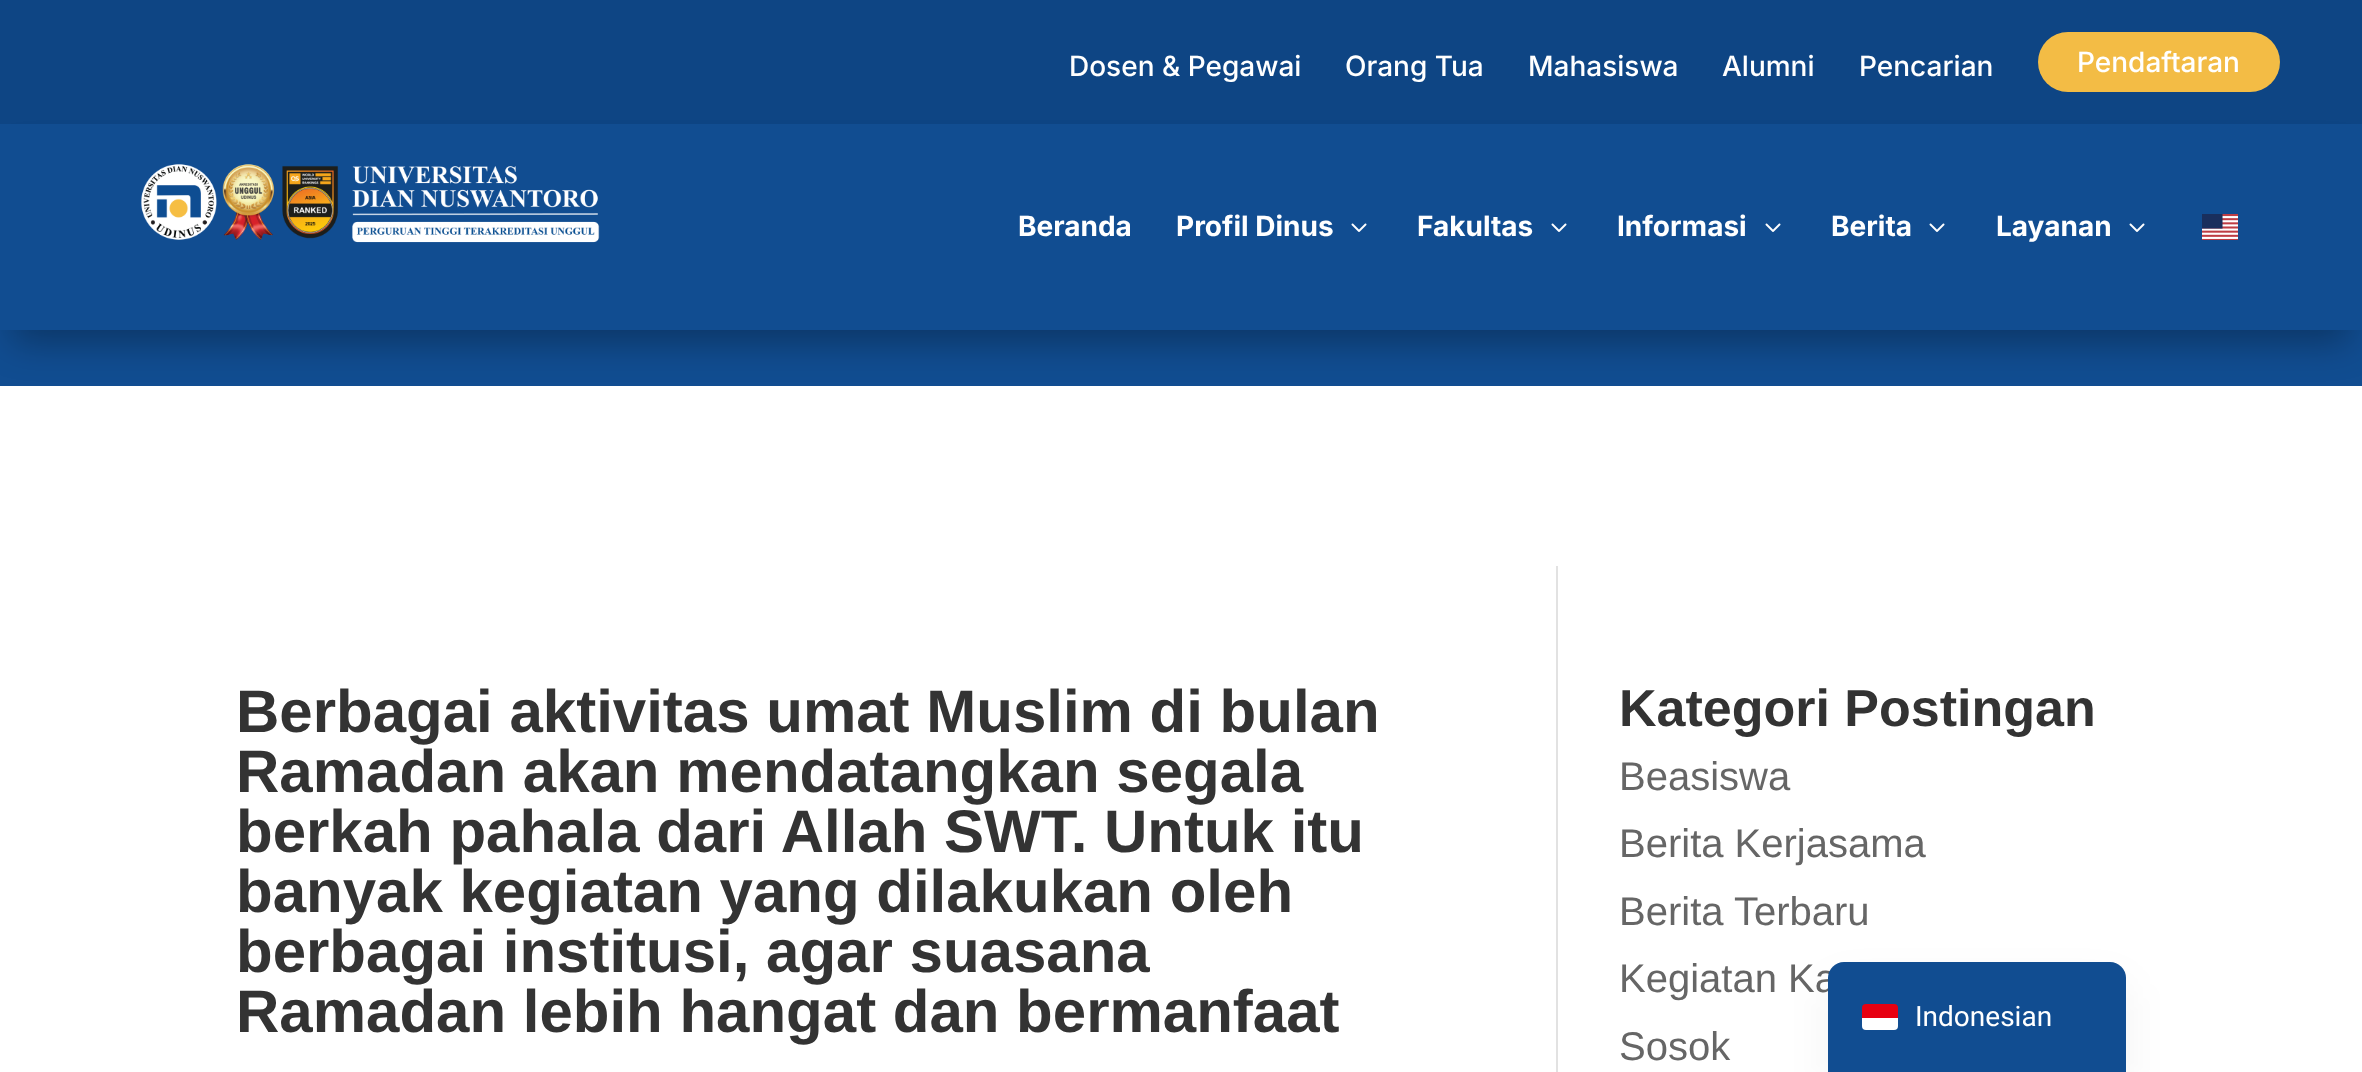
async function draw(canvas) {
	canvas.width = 2362;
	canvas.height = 1072;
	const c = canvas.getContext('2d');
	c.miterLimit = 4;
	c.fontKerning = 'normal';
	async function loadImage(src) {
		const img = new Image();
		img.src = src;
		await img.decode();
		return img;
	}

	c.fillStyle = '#fff';
	c.fillRect(0, 0, 2362, 1072);
	c.fillStyle = '#0e4584';
	c.fillRect(0, 0, 2362, 124);
	c.font = '500 28px Inter';
	c.fillStyle = '#fff';
	for (const [text, x, y] of [
		['Dosen & Pegawai', 1069, 76],
		['Orang Tua', 1345, 76],
		['Mahasiswa', 1528, 76],
		['Alumni', 1722, 76],
		['Pencarian', 1859, 76],
	]) {
		c.fillText(text, x, y);
	}
	c.fillStyle = '#f3bc45';
	c.beginPath();
	c.roundRect(2038, 32, 242, 60, 30);
	c.fill();
	c.fillStyle = '#fff';
	c.fillText('Pendaftaran', 2077, 72);
	c.fillStyle = '#114d91';
	c.fillRect(0, 330, 2362, 56);
	c.fillStyle = '#0000004d';
	c.filter = 'blur(18px)';
	c.beginPath();
	c.rect(12, 160, 2338, 182);
	c.fill();
	c.filter = 'none';
	c.fillStyle = '#114d91';
	c.fillRect(0, 124, 2362, 206);
	c.drawImage(await loadImage('img1.png'), 141, 164, 459, 79);
	c.font = 'bold 28px Inter';
	c.fillStyle = '#fff';
	c.fillText('Beranda', 1018, 236);
	c.fillText('Profil Dinus', 1176, 236);
	c.drawImage(await loadImage('img2.png'), 1351, 223, 16, 9);
	c.fillText('Fakultas', 1417, 236);
	c.drawImage(await loadImage('img2.png'), 1551, 223, 16, 9);
	c.fillText('Informasi', 1617, 236);
	c.drawImage(await loadImage('img2.png'), 1765, 223, 16, 9);
	c.fillText('Berita', 1831, 236);
	c.drawImage(await loadImage('img2.png'), 1929, 223, 16, 9);
	c.fillText('Layanan', 1996, 236);
	c.drawImage(await loadImage('img2.png'), 2129, 223, 16, 9);
	c.drawImage(await loadImage('img3.png'), 2202, 214, 36, 26);
	c.fillStyle = '#e2e2e2';
	c.fillRect(1556, 566, 2, 506);
	c.font = 'bold 60px Liberation Sans';
	c.fillStyle = '#333';
	for (const [text, x, y] of [
		['Berbagai aktivitas umat Muslim di bulan', 236, 732],
		['Ramadan akan mendatangkan segala', 236, 792],
		['berkah pahala dari Allah SWT. Untuk itu', 236, 852],
		['banyak kegiatan yang dilakukan oleh', 236, 912],
		['berbagai institusi, agar suasana', 236, 972],
		['Ramadan lebih hangat dan bermanfaat', 236, 1032],
	]) {
		c.fillText(text, x, y);
	}
	c.font = 'bold 52px Liberation Sans';
	c.fillText('Kategori Postingan', 1619, 726);
	c.font = '40px Liberation Sans';
	c.fillStyle = '#666';
	for (const [text, x, y] of [
		['Beasiswa', 1619, 790],
		['Berita Kerjasama', 1619, 857],
		['Berita Terbaru', 1619, 925],
		['Kegiatan Ka', 1619, 992],
		['Sosok', 1619, 1060],
	]) {
		c.fillText(text, x, y);
	}
	c.fillStyle = '#0000000d';
	c.filter = 'blur(20px)';
	c.beginPath();
	c.roundRect(1828, 982, 298, 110, 16);
	c.fill();
	c.filter = 'none';
	c.fillStyle = '#114d91';
	c.beginPath();
	c.roundRect(1828, 962, 298, 110, [16, 16, 0, 0]);
	c.fill();
	c.fillStyle = '#e70011';
	c.beginPath();
	c.roundRect(1862, 1004, 36, 14, [4, 4, 0, 0]);
	c.fill();
	c.fillStyle = '#fff';
	c.beginPath();
	c.roundRect(1862, 1018, 36, 12, [0, 0, 4, 4]);
	c.fill();
	c.font = '28px Roboto';
	c.fillText('Indonesian', 1915, 1026);
}

draw(document.querySelector('canvas'));
